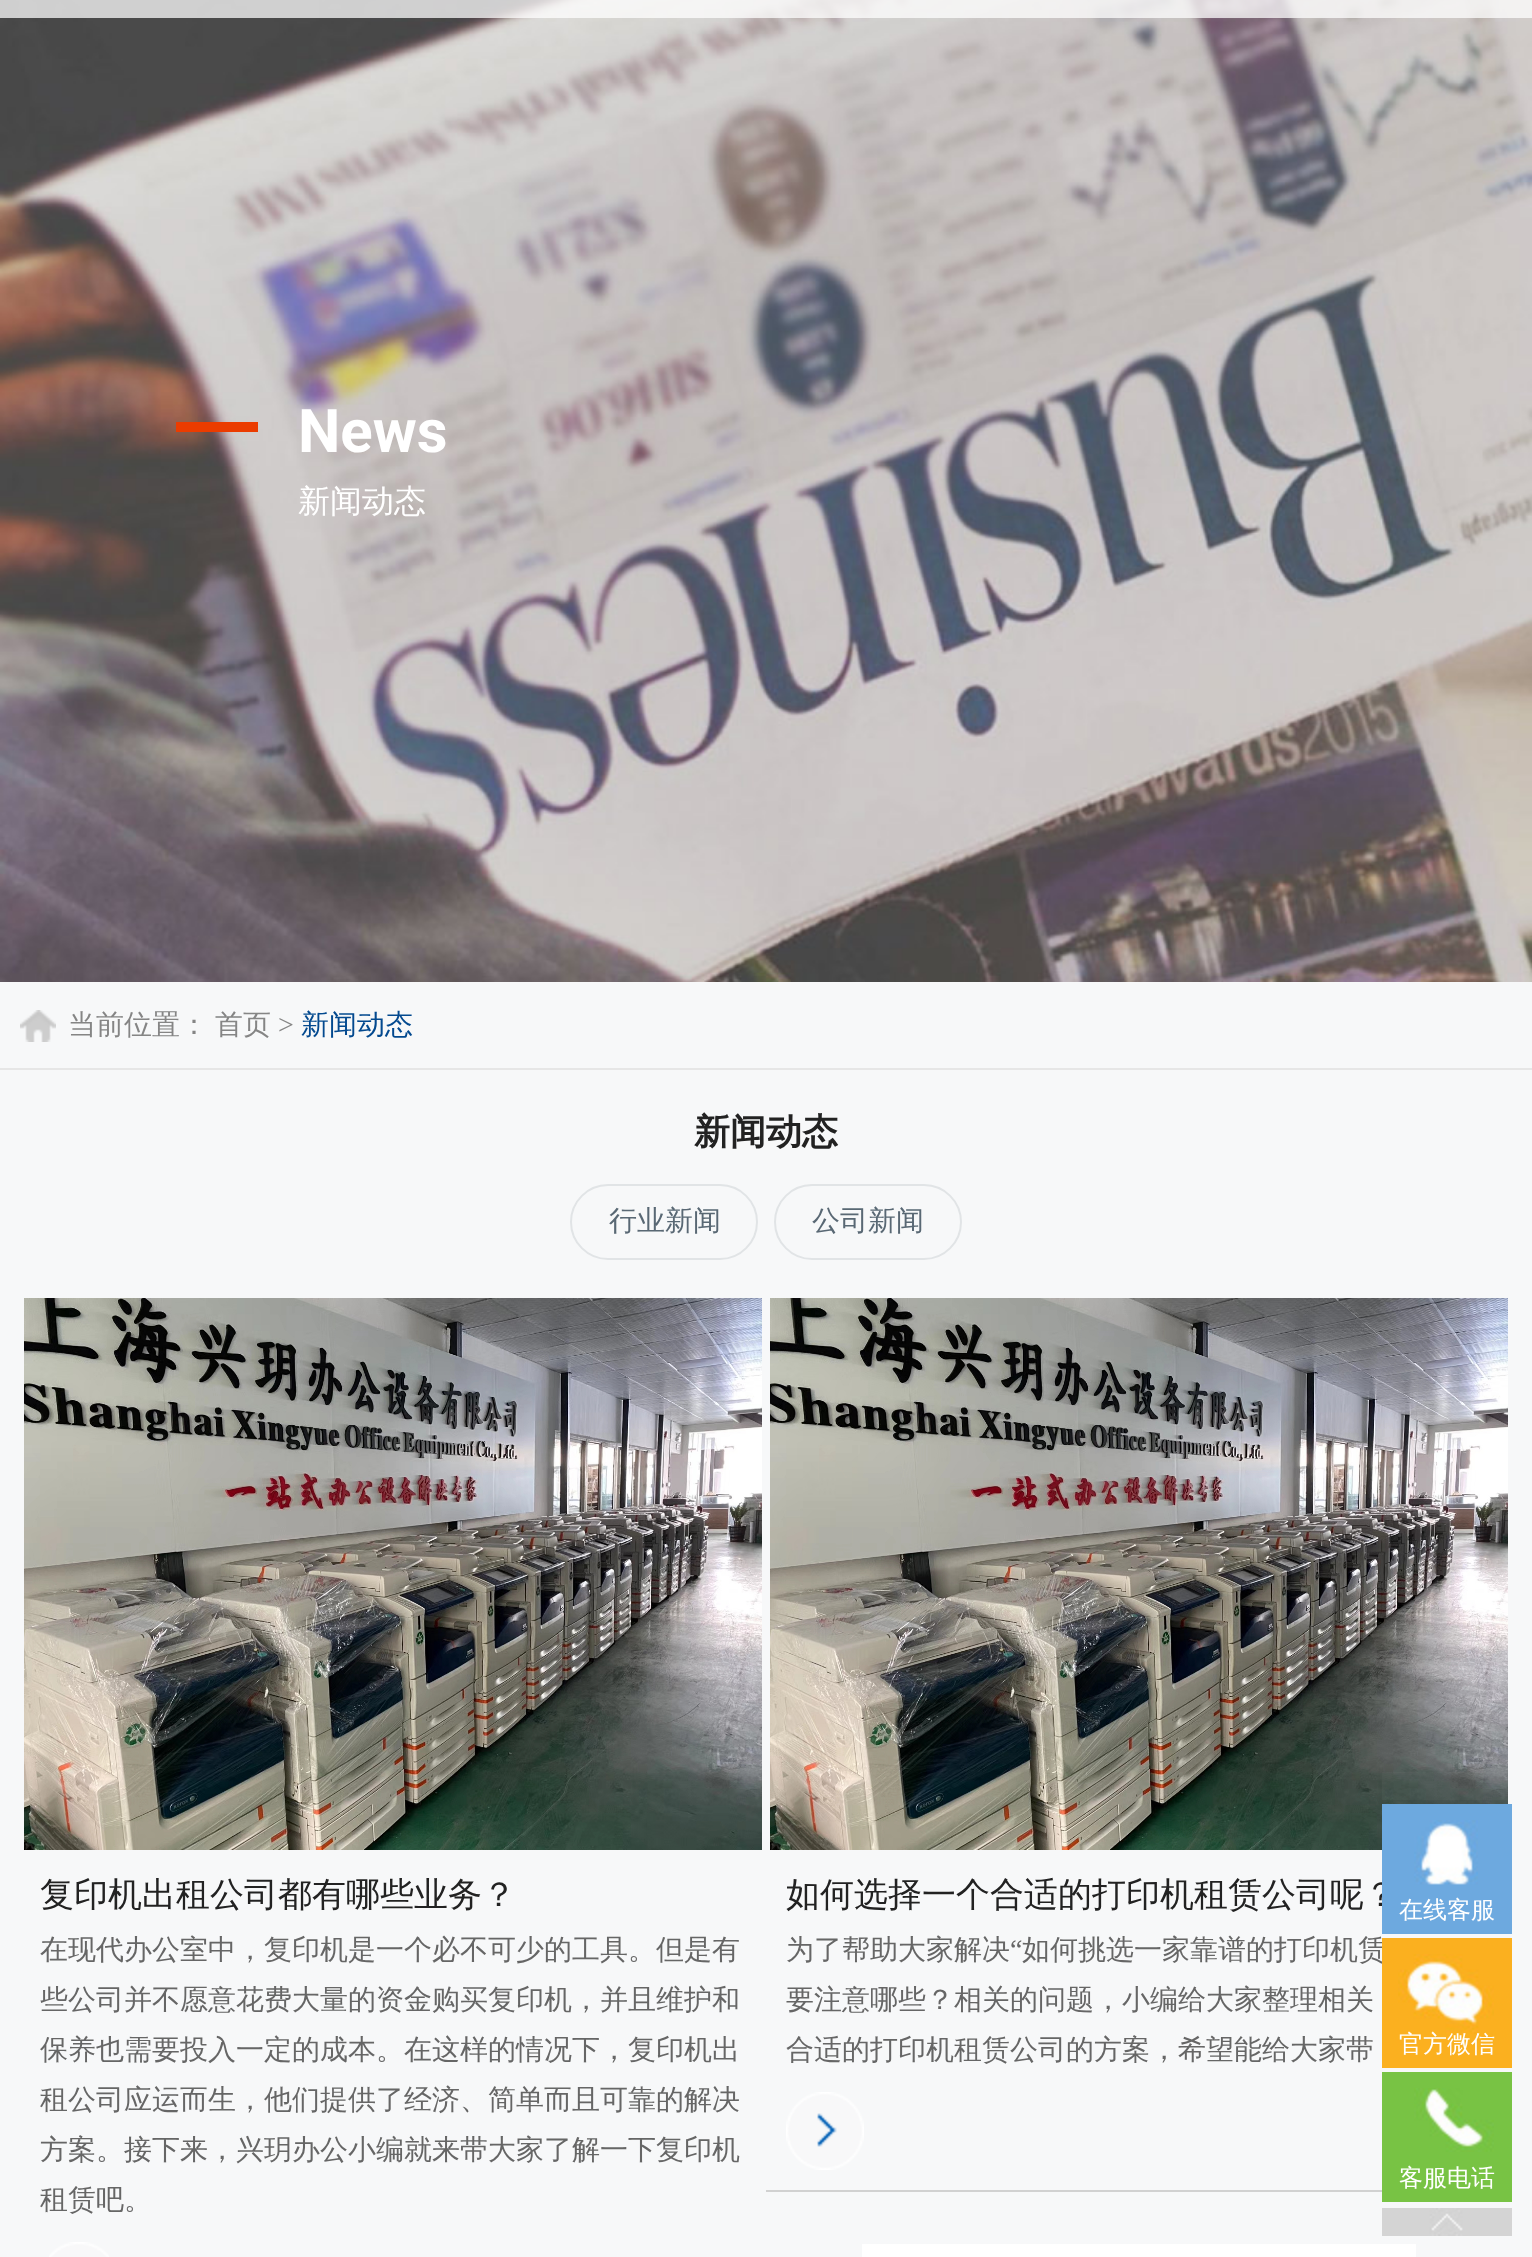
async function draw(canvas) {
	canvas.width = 1532;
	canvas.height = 2257;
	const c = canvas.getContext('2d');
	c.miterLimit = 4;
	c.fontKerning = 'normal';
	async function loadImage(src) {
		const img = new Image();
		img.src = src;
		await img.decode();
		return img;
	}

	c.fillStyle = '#f7f8f9';
	c.fillRect(0, 0, 1532, 2257);
	c.drawImage(await loadImage('img1.png'), 0, 0, 1532, 982);
	c.fillStyle = '#ffffffbd';
	c.fillRect(0, 0, 1532, 18);
	c.fillStyle = '#eb3c00';
	c.fillRect(176, 422, 82, 10);
	c.font = 'bold 60px Roboto';
	c.fillStyle = '#fff';
	c.fillText('News', 298, 452);
	c.font = '500 32px WenQuanYi Zen Hei';
	c.fillText('新闻动态', 298, 512);
	c.fillStyle = '#e6e6e6';
	c.fillRect(0, 1068, 1532, 2);
	c.drawImage(await loadImage('img2.png'), 20, 1010, 36, 32);
	c.font = '500 28px WenQuanYi Zen Hei';
	c.fillStyle = '#858585';
	c.fillText('当前位置：', 68, 1034);
	c.fillText('首页', 215, 1034);
	c.font = '28px Liberation Serif';
	c.fillText('>', 278, 1034);
	c.font = '500 28px WenQuanYi Zen Hei';
	c.fillStyle = '#03498f';
	c.fillText('新闻动态', 301, 1034);
	c.font = 'bold 36px WenQuanYi Zen Hei';
	c.fillStyle = '#222';
	c.fillText('新闻动态', 694, 1144);
	c.beginPath();
	c.roundRect(571, 1185, 186, 74, 37);
	c.strokeStyle = '#e1e4e6';
	c.lineWidth = 2;
	c.stroke();
	c.font = '500 28px WenQuanYi Zen Hei';
	c.fillStyle = '#596874';
	c.fillText('行业新闻', 609, 1230);
	c.beginPath();
	c.roundRect(775, 1185, 186, 74, 37);
	c.stroke();
	c.fillText('公司新闻', 812, 1230);
	c.drawImage(await loadImage('img3.png'), 24, 1298, 738, 552);
	c.font = '500 34px WenQuanYi Zen Hei';
	c.fillStyle = '#222';
	c.fillText('复印机出租公司都有哪些业务？', 40, 1906);
	c.font = '500 28px WenQuanYi Zen Hei';
	c.fillStyle = '#666';
	for (const [text, x, y] of [
		['在现代办公室中，复印机是一个必不可少的工具。但是有', 40, 1959],
		['些公司并不愿意花费大量的资金购买复印机，并且维护和', 40, 2009],
		['保养也需要投入一定的成本。在这样的情况下，复印机出', 40, 2059],
		['租公司应运而生，他们提供了经济、简单而且可靠的解决', 40, 2109],
		['方案。接下来，兴玥办公小编就来带大家了解一下复印机', 40, 2159],
		['租赁吧。', 40, 2209],
	]) {
		c.fillText(text, x, y);
	}
	c.drawImage(await loadImage('img4.png'), 49, 2242, 60, 15);
	c.fillStyle = '#d1d1d1';
	c.fillRect(766, 2190, 616, 2);
	c.drawImage(await loadImage('img5.png'), 770, 1298, 738, 552);
	c.font = '500 34px WenQuanYi Zen Hei';
	c.fillStyle = '#222';
	c.fillText('如何选择一个合适的打印机租赁公司呢？', 786, 1906);
	c.font = '500 28px WenQuanYi Zen Hei';
	c.fillStyle = '#666';
	c.fillText('为了帮助大家解决', 786, 1959);
	c.font = '28px Liberation Serif';
	c.fillText('“', 1010, 1959);
	c.font = '500 28px WenQuanYi Zen Hei';
	for (const [text, x, y] of [
		['如何挑选一家靠谱的打印机赁', 1022, 1959],
		['要注意哪些？相关的问题，小编给大家整理相关', 786, 2009],
		['合适的打印机租赁公司的方案，希望能给大家带', 786, 2059],
	]) {
		c.fillText(text, x, y);
	}
	c.drawImage(await loadImage('img6.png'), 786, 2092, 78, 78);
	c.fillStyle = '#fff';
	c.fillRect(862, 2244, 554, 13);
	c.drawImage(await loadImage('img7.png'), 1382, 1772, 126, 28);
	c.fillStyle = '#6da9df';
	c.fillRect(1382, 1804, 130, 130);
	c.drawImage(await loadImage('img8.png'), 1414, 1820, 64, 65);
	c.font = '500 24px WenQuanYi Zen Hei';
	c.fillStyle = '#fff';
	c.fillText('在线客服', 1399, 1918);
	c.fillStyle = '#fbb01f';
	c.fillRect(1382, 1938, 130, 130);
	c.drawImage(await loadImage('img9.png'), 1398, 1954, 96, 80);
	c.fillStyle = '#fff';
	c.fillText('官方微信', 1399, 2052);
	c.fillStyle = '#78c344';
	c.fillRect(1382, 2072, 130, 130);
	c.drawImage(await loadImage('img10.png'), 1414, 2088, 80, 64);
	c.fillStyle = '#fff';
	c.fillText('客服电话', 1399, 2186);
	c.drawImage(await loadImage('img11.png'), 1382, 2208, 130, 28);
}

draw(document.querySelector('canvas'));
